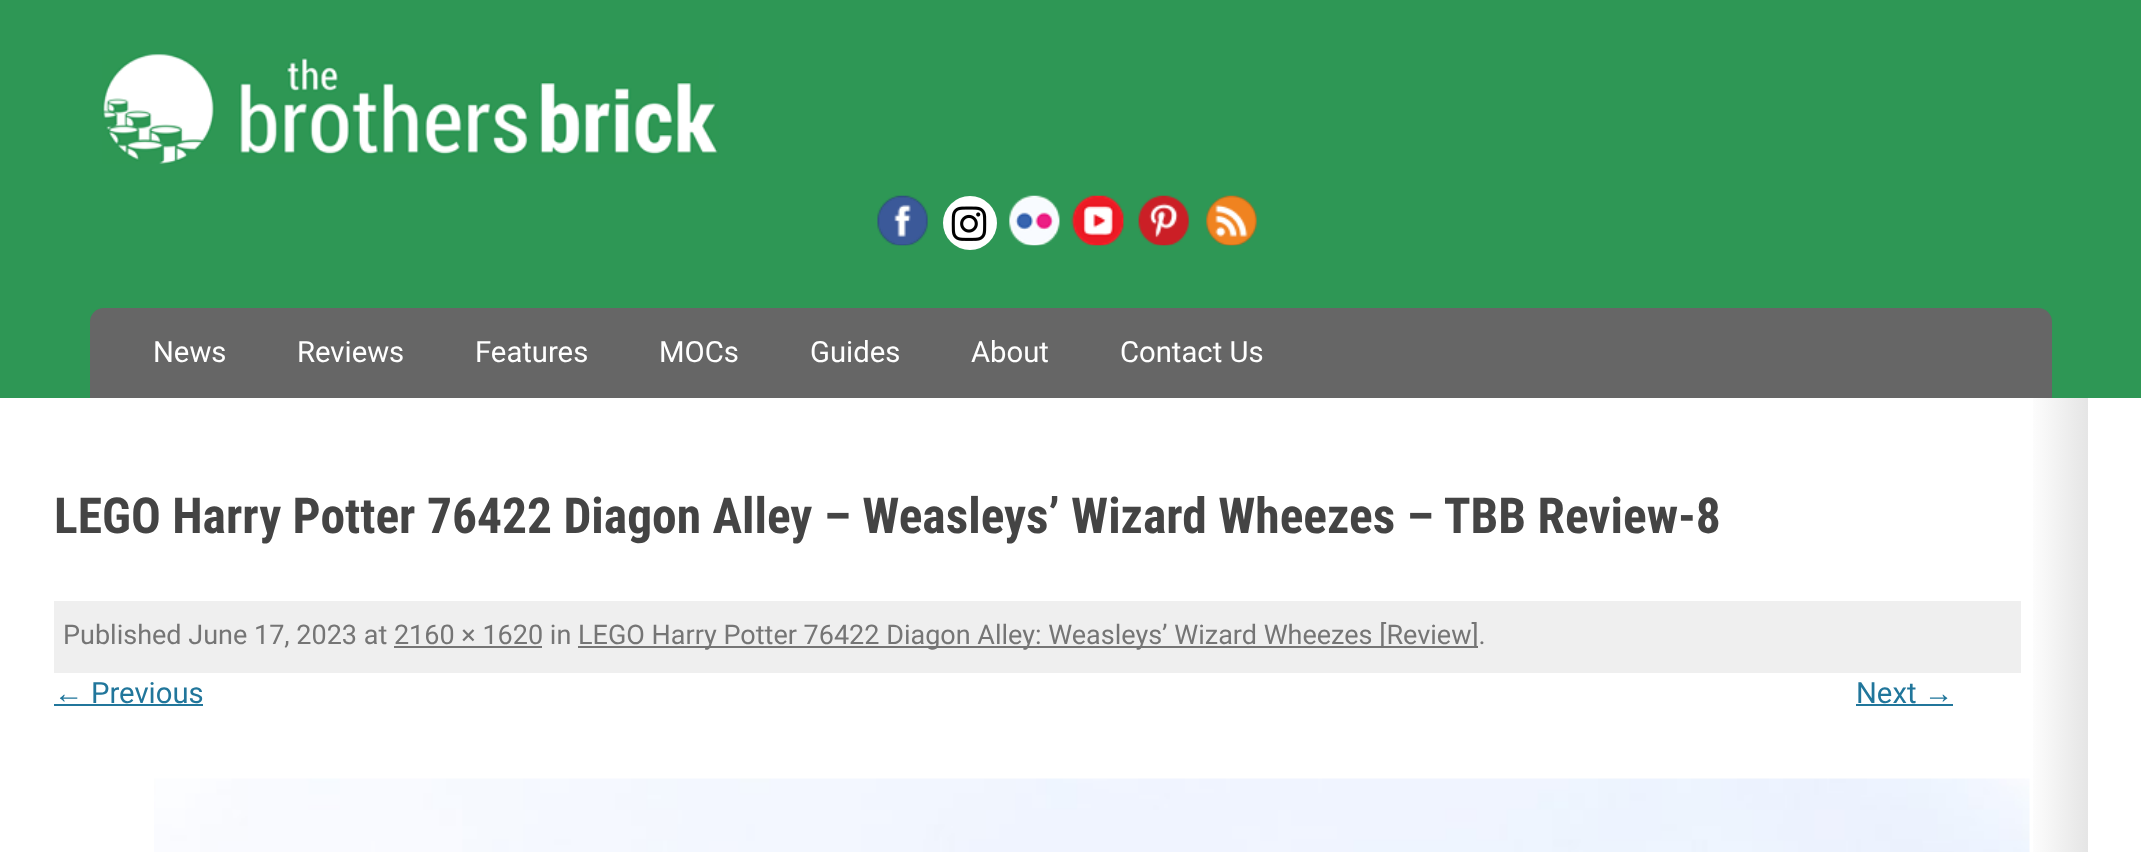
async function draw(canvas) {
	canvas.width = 2141;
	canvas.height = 852;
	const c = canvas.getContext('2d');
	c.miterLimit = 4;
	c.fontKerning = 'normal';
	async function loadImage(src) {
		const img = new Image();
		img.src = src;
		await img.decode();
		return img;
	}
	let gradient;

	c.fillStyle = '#fff';
	c.fillRect(0, 0, 2141, 852);
	c.fillStyle = '#2e9755';
	c.fillRect(0, 0, 2141, 398);
	c.drawImage(await loadImage('img1.png'), 102, 54, 617, 110);
	c.drawImage(await loadImage('img2.png'), 877, 195, 51, 51);
	c.fillStyle = '#fff';
	c.beginPath();
	c.arc(970, 223, 27, 0, 2 * Math.PI);
	c.fill();
	c.drawImage(await loadImage('img3.png'), 951, 206, 36, 35);
	c.drawImage(await loadImage('img4.png'), 1009, 195, 51, 51);
	c.drawImage(await loadImage('img5.png'), 1071, 195, 53, 51);
	c.drawImage(await loadImage('img6.png'), 1138, 195, 51, 51);
	c.drawImage(await loadImage('img7.png'), 1206, 195, 51, 51);
	c.fillStyle = '#666';
	c.beginPath();
	c.roundRect(90, 308, 1962, 90, [14, 14, 0, 0]);
	c.fill();
	c.font = '29.25px Roboto';
	c.fillStyle = '#fff';
	for (const [text, x, y] of [
		['News', 153, 362],
		['Reviews', 297, 362],
		['Features', 475, 362],
		['MOCs', 659, 362],
		['Guides', 810, 362],
		['About', 971, 362],
		['Contact Us', 1120, 362],
	]) {
		c.fillText(text, x, y);
	}
	gradient = c.createLinearGradient(54, 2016, 2088, 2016);
	gradient.addColorStop(0.97, '#fff');
	gradient.addColorStop(1, '#e5e5e5');
	c.fillStyle = gradient;
	c.fillRect(2033, 398, 55, 454);
	c.font = 'bold 49.5px Roboto Condensed';
	c.fillStyle = '#444';
	c.fillText('LEGO Harry Potter 76422 Diagon Alley – Weasleys’ Wizard Wheezes – TBB Review-8', 54, 533);
	c.fillStyle = '#efefef';
	c.fillRect(54, 601, 1967, 72);
	c.font = '27px Roboto';
	c.fillStyle = '#757575';
	c.fillText('Published June 17, 2023 at 2160 × 1620 in', 63, 644);
	c.fillRect(578, 646, 900, 2);
	c.fillText('LEGO Harry Potter 76422 Diagon Alley: Weasleys’ Wizard Wheezes [Review].', 578, 644);
	c.fillRect(394, 646, 148, 2);
	c.font = '29.25px Liberation Sans';
	c.fillStyle = '#21769b';
	c.fillText('←', 54, 703);
	c.fillRect(54, 704, 149, 2);
	c.font = '29.25px Roboto';
	c.fillText('Previous', 91, 703);
	c.fillText('Next', 1856, 703);
	c.font = '29.25px Liberation Sans';
	c.fillText('→', 1924, 703);
	c.fillRect(1856, 704, 97, 2);
	c.drawImage(await loadImage('img8.png'), 154, 778, 1876, 74);
}

draw(document.querySelector('canvas'));
